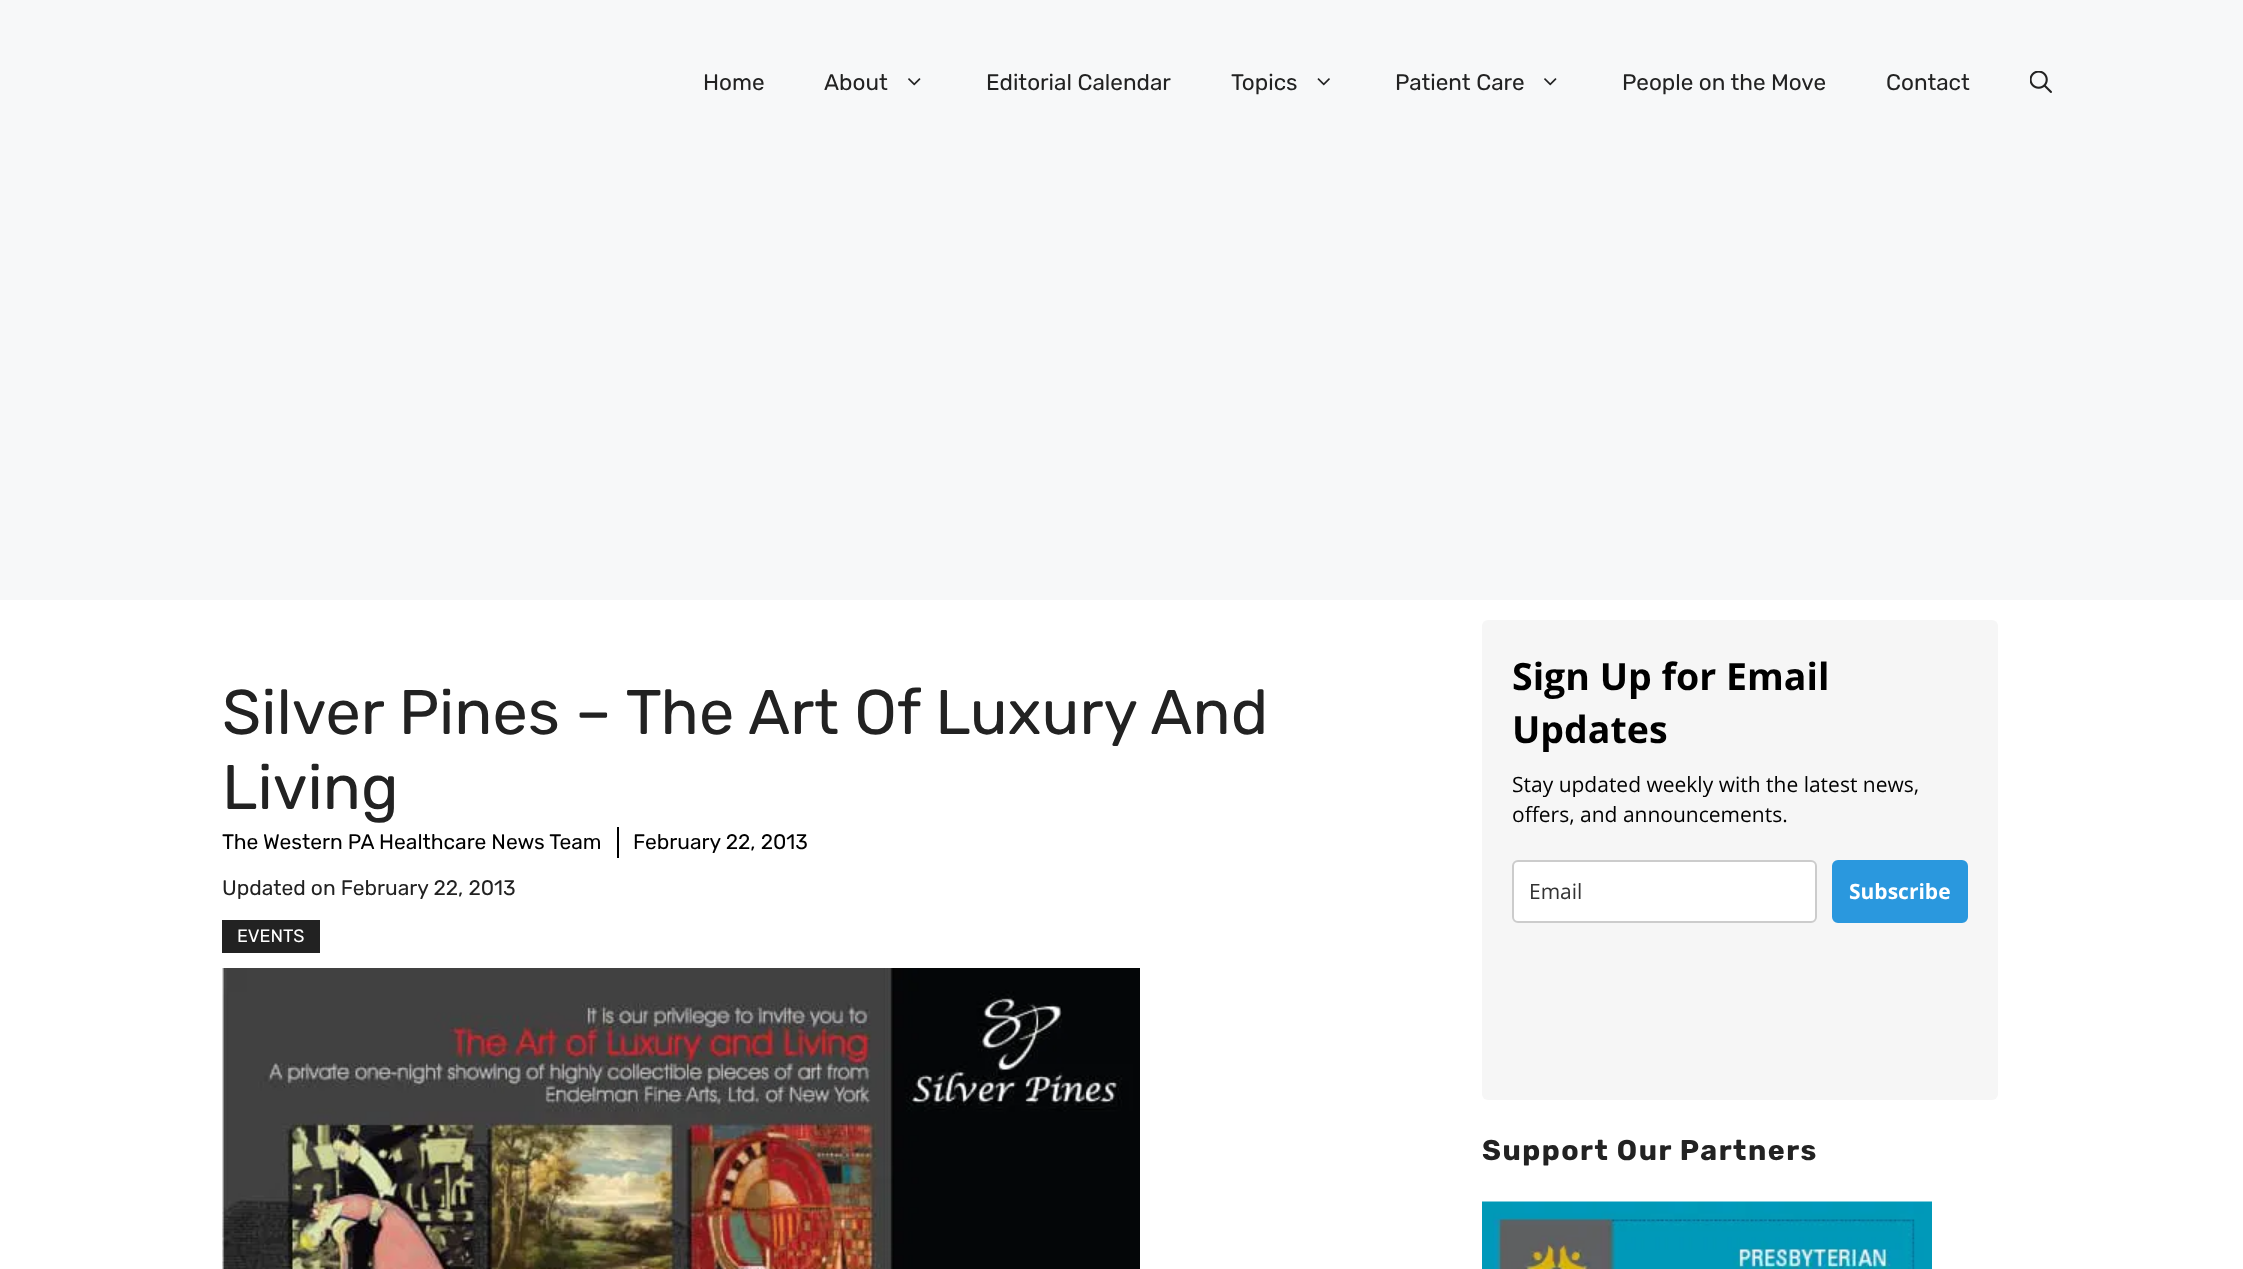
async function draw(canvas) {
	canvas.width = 2243;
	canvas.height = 1269;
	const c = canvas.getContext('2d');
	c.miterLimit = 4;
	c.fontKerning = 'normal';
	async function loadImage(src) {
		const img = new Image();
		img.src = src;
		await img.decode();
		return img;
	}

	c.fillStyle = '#fff';
	c.fillRect(0, 0, 2243, 1269);
	c.fillStyle = '#f7f8f9';
	c.fillRect(0, 0, 2243, 600);
	c.font = '300 22.5px "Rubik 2"';
	c.fillStyle = '#222';
	c.fillText('Home', 703, 90);
	c.fillText('About', 824, 90);
	c.drawImage(await loadImage('img1.png'), 908, 78, 13, 8);
	c.fillText('Editorial Calendar', 986, 90);
	c.fillText('Topics', 1231, 90);
	c.drawImage(await loadImage('img2.png'), 1317, 78, 13, 8);
	c.fillText('Patient Care', 1395, 90);
	c.drawImage(await loadImage('img1.png'), 1544, 78, 13, 8);
	c.fillText('People on the Move', 1622, 90);
	c.fillText('Contact', 1886, 90);
	c.drawImage(await loadImage('img3.png'), 2030, 71, 22, 22);
	c.font = '300 63px "Rubik 2"';
	c.fillText('Silver Pines – The Art Of Luxury And', 222, 734);
	c.fillText('Living', 222, 809);
	c.fillStyle = '#000';
	c.fillRect(617, 827, 2, 31);
	c.font = '300 21px "Rubik 2"';
	c.fillText('The Western PA Healthcare News Team', 222, 849);
	c.fillText('February 22, 2013', 633, 849);
	c.fillStyle = '#222';
	c.fillText('Updated on February 22, 2013', 222, 895);
	c.fillRect(222, 920, 98, 33);
	c.font = '300 18px "Rubik 2"';
	c.fillStyle = '#fff';
	c.fillText('EVENTS', 237, 942);
	c.drawImage(await loadImage('img4.png'), 222, 968, 918, 301);
	c.fillStyle = '#f6f6f6';
	c.beginPath();
	c.roundRect(1482, 620, 516, 480, 6);
	c.fill();
	c.font = 'bold 37.5px Open Sans';
	c.fillStyle = '#000';
	c.fillText('Sign Up for Email', 1512, 690);
	c.fillText('Updates', 1512, 743);
	c.font = '21px Open Sans';
	c.fillText('Stay updated weekly with the latest news,', 1512, 792);
	c.fillText('offers, and announcements.', 1512, 822);
	c.fillStyle = '#fff';
	c.beginPath();
	c.roundRect(1513, 861, 303, 61, 5);
	c.fill();
	c.strokeStyle = '#ccc';
	c.lineWidth = 2;
	c.stroke();
	c.fillStyle = '#333';
	c.fillText('Email', 1529, 899);
	c.fillStyle = '#2a98de';
	c.beginPath();
	c.roundRect(1833, 861, 134, 61, 5);
	c.fill();
	c.strokeStyle = '#2a98de';
	c.stroke();
	c.font = 'bold 21px Open Sans';
	c.fillStyle = '#fff';
	c.fillText('Subscribe', 1849, 899);
	c.letterSpacing = '1.5px';
	c.font = '300 28.5px Rubik';
	c.fillStyle = '#222';
	c.fillText('Support Our Partners', 1482, 1160);
	c.drawImage(await loadImage('img5.png'), 1482, 1201, 450, 68);
}

draw(document.querySelector('canvas'));
